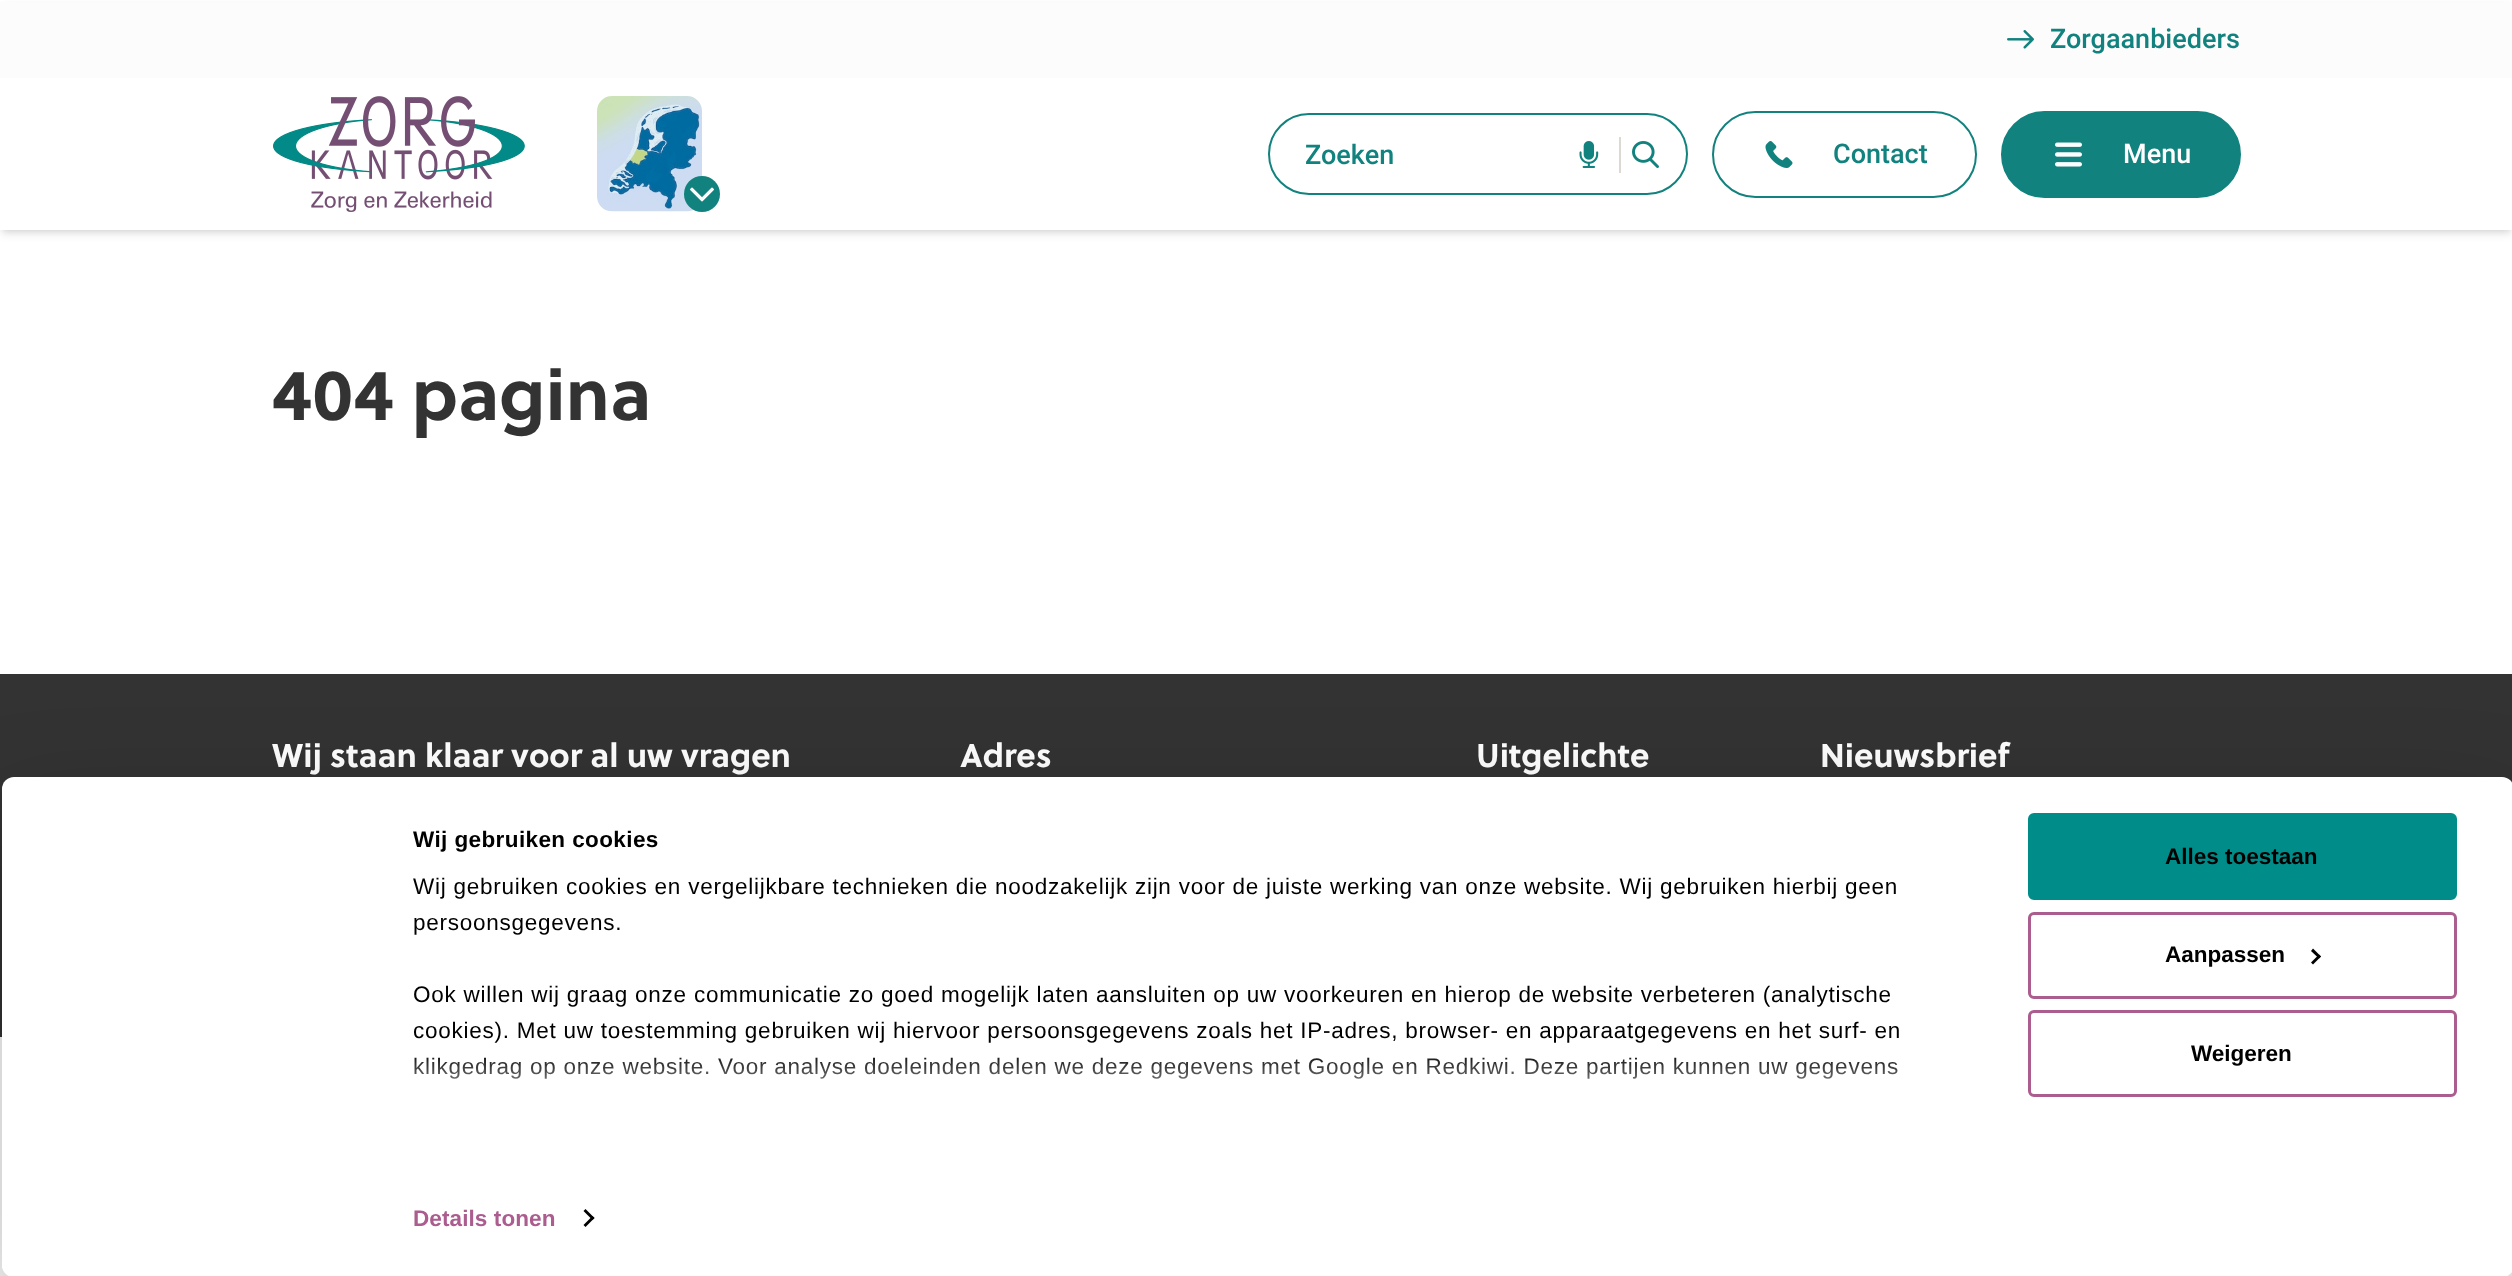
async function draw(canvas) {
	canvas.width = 2512;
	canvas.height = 1276;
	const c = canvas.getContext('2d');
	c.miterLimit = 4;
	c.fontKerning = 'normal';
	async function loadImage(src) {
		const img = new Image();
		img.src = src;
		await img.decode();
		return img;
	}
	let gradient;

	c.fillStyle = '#fff';
	c.fillRect(0, 0, 2512, 1276);
	c.fillStyle = '#0000001a';
	c.filter = 'blur(3px)';
	c.beginPath();
	c.rect(3, 6, 2507, 224);
	c.fill();
	c.filter = 'none';
	c.filter = 'blur(4.5px)';
	c.beginPath();
	c.rect(2, 8, 2509, 226);
	c.fill();
	c.filter = 'none';
	c.fillStyle = '#fff';
	c.fillRect(0, 78, 2512, 152);
	c.fillStyle = '#fcfcfc';
	c.fillRect(0, 2, 2512, 76);
	c.drawImage(await loadImage('img1.png'), 2007, 30, 27, 19);
	c.font = '500 27px Roboto';
	c.fillStyle = '#11827e';
	c.fillText('Zorgaanbieders', 2050, 48);
	c.drawImage(await loadImage('img2.png'), 273, 96, 252, 116);
	c.drawImage(await loadImage('img3.png'), 597, 96, 105, 116);
	c.beginPath();
	c.arc(702, 194, 18, 0, 2 * Math.PI);
	c.fill();
	c.drawImage(await loadImage('img4.png'), 690, 187, 24, 15);
	c.beginPath();
	c.roundRect(1269, 114, 418, 80, 40);
	c.strokeStyle = '#11827e';
	c.lineWidth = 2;
	c.stroke();
	c.fillText('Zoeken', 1305, 164);
	c.fillStyle = '#dbd9d2';
	c.fillRect(1619, 137, 2, 36);
	c.drawImage(await loadImage('img5.png'), 1579, 141, 20, 27);
	c.drawImage(await loadImage('img6.png'), 1632, 141, 27, 27);
	c.beginPath();
	c.roundRect(1713, 112, 263, 85, 42.5);
	c.stroke();
	c.drawImage(await loadImage('img7.png'), 1765, 141, 28, 27);
	c.fillStyle = '#11827e';
	c.fillText('Contact', 1833, 163);
	c.beginPath();
	c.roundRect(2002, 112, 238, 85, 42.5);
	c.fill();
	c.stroke();
	c.drawImage(await loadImage('img8.png'), 2055, 142, 27, 25);
	c.fillStyle = '#fff';
	c.fillText('Menu', 2123, 163);
	c.font = 'bold 72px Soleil';
	c.fillStyle = '#333';
	c.fillText('404 pagina', 272, 420);
	c.fillRect(0, 674, 2512, 363);
	c.font = 'bold 33px Soleil';
	c.fillStyle = '#fff';
	for (const [text, x, y] of [
		['Wij staan klaar voor al uw vragen', 272, 767],
		['Adres', 960, 767],
		['Uitgelichte', 1476, 767],
		['Nieuwsbrief', 1820, 767],
	]) {
		c.fillText(text, x, y);
	}
	c.save();
	c.beginPath();
	c.moveTo(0, 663);
	c.lineTo(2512, 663);
	c.lineTo(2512, 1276);
	c.lineTo(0, 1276);
	c.closePath();
	c.moveTo(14, 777);
	c.lineTo(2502, 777);
	c.bezierCurveTo(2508.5, 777, 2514, 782.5, 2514, 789);
	c.lineTo(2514, 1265);
	c.bezierCurveTo(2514, 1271.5, 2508.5, 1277, 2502, 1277);
	c.lineTo(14, 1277);
	c.bezierCurveTo(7.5, 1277, 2, 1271.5, 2, 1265);
	c.lineTo(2, 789);
	c.bezierCurveTo(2, 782.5, 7.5, 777, 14, 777);
	c.closePath();
	c.clip('evenodd');
	c.fillStyle = '#0000004d';
	c.filter = 'blur(52.5px)';
	c.beginPath();
	c.roundRect(2, 822, 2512, 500, 12);
	c.fill();
	c.filter = 'none';
	c.restore();
	c.beginPath();
	c.roundRect(2, 777, 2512, 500, 12);
	c.fill();
	c.letterSpacing = '0.4px';
	c.font = 'bold 22.5px Liberation Sans';
	c.fillStyle = '#000';
	c.fillText('Wij gebruiken cookies', 413, 847);
	c.letterSpacing = '0.75px';
	c.font = '22.5px Liberation Sans';
	for (const [text, x, y] of [
		['Wij gebruiken cookies en vergelijkbare technieken die noodzakelijk zijn voor de juiste werking van onze website. Wij gebruiken hierbij geen', 413, 894],
		['persoonsgegevens.', 413, 930],
		['Ook willen wij graag onze communicatie zo goed mogelijk laten aansluiten op uw voorkeuren en hierop de website verbeteren (analytische', 413, 1002],
		['cookies). Met uw toestemming gebruiken wij hiervoor persoonsgegevens zoals het IP-adres, browser- en apparaatgegevens en het surf- en', 413, 1038],
		['klikgedrag op onze website. Voor analyse doeleinden delen we deze gegevens met Google en Redkiwi. Deze partijen kunnen uw gegevens', 413, 1074],
	]) {
		c.fillText(text, x, y);
	}
	gradient = c.createLinearGradient(1184, 1163, 1184, 1050);
	gradient.addColorStop(0, '#fff');
	gradient.addColorStop(0.5, '#ffffffcc');
	gradient.addColorStop(1, '#ffffff00');
	c.fillStyle = gradient;
	c.fillRect(414, 1057, 1484, 22);
	c.letterSpacing = '0.1px';
	c.font = 'bold 22.5px Liberation Sans';
	c.fillStyle = '#ab5d8f';
	c.fillText('Details tonen', 413, 1226);
	c.fillStyle = '#000';
	c.beginPath();
	c.moveTo(585.5, 1209);
	c.lineTo(594.5, 1218);
	c.lineTo(592.5, 1220);
	c.lineTo(583.5, 1211);
	c.closePath();
	c.fill();
	c.beginPath();
	c.moveTo(592.5, 1216);
	c.lineTo(594.5, 1218);
	c.lineTo(585.5, 1227);
	c.lineTo(583.5, 1225);
	c.closePath();
	c.fill();
	c.fillStyle = '#008d8a';
	c.beginPath();
	c.roundRect(2029.5, 814.5, 426, 84, 4.5);
	c.fill();
	c.strokeStyle = '#008d8a';
	c.lineWidth = 3;
	c.stroke();
	c.letterSpacing = '0px';
	c.fillStyle = '#000';
	c.fillText('Alles toestaan', 2165, 864);
	c.beginPath();
	c.roundRect(2029.5, 913.5, 426, 84, 4.5);
	c.strokeStyle = '#ab5d8f';
	c.stroke();
	c.fillText('Aanpassen', 2165, 962);
	c.beginPath();
	c.moveTo(2313, 948.5);
	c.lineTo(2321, 956.5);
	c.lineTo(2319, 958.5);
	c.lineTo(2311, 951);
	c.closePath();
	c.fill();
	c.beginPath();
	c.moveTo(2319, 954.5);
	c.lineTo(2321, 956.5);
	c.lineTo(2313, 964.5);
	c.lineTo(2311, 962.5);
	c.closePath();
	c.fill();
	c.beginPath();
	c.roundRect(2029.5, 1011.5, 426, 84, 4.5);
	c.stroke();
	c.fillText('Weigeren', 2191, 1061);
}

draw(document.querySelector('canvas'));
